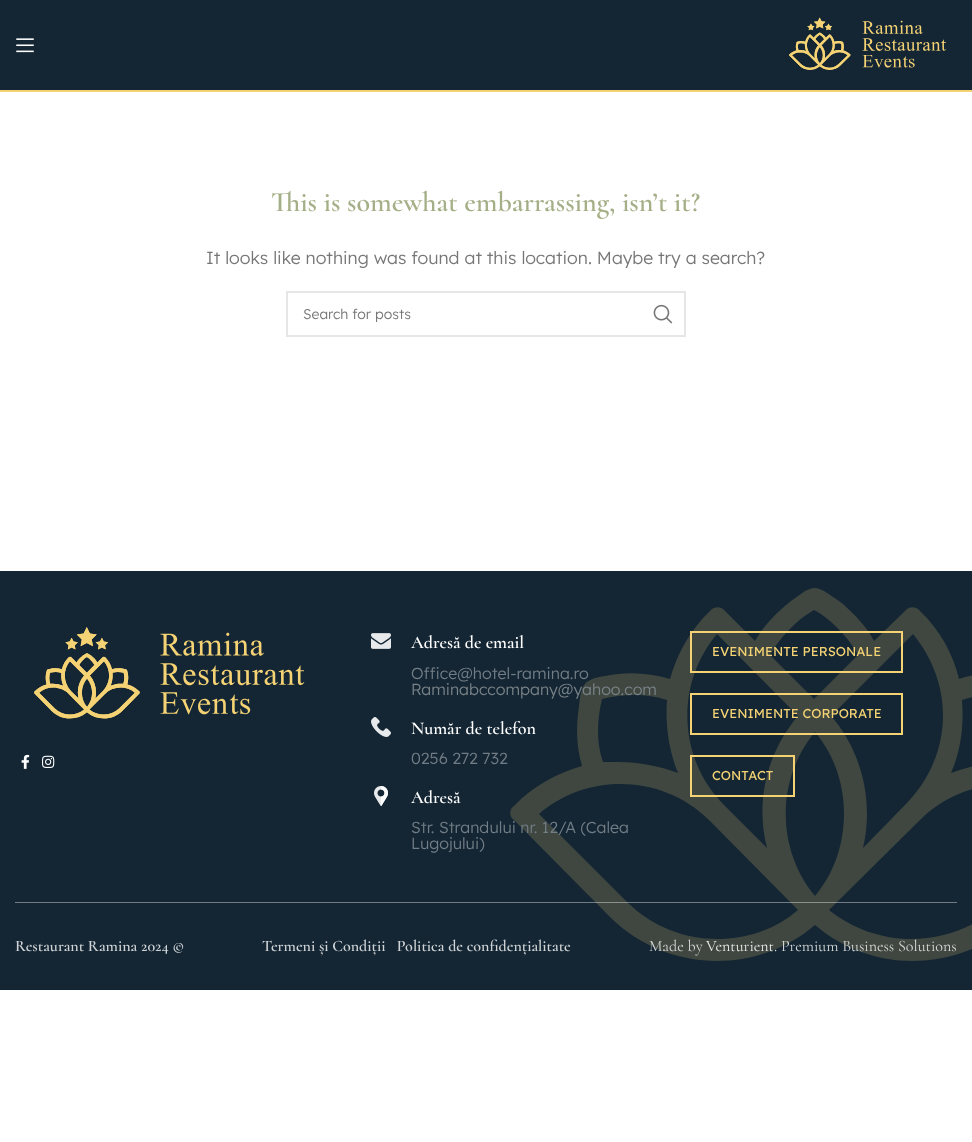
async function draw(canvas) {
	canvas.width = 972;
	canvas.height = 1142;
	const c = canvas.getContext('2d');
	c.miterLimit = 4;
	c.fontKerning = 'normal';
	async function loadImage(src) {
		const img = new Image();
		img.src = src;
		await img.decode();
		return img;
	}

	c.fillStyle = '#fff';
	c.fillRect(0, 0, 972, 1142);
	c.fillStyle = '#142634';
	c.fillRect(0, 0, 972, 90);
	c.fillStyle = '#f5d374';
	c.fillRect(0, 90, 972, 2);
	c.drawImage(await loadImage('img1.png'), 16, 38, 18, 15);
	c.drawImage(await loadImage('img2.png'), 789, 17, 158, 53);
	c.font = '600 28px Cormorant';
	c.fillStyle = '#a5af87';
	c.fillText('This is somewhat embarrassing, isn’t it?', 271, 211);
	c.font = '300 17.6px Lexend';
	c.fillStyle = '#767676';
	c.fillText('It looks like nothing was found at this location. Maybe try a search?', 206, 264);
	c.strokeStyle = '#e6e6e6';
	c.lineWidth = 2;
	c.strokeRect(287, 292, 398, 44);
	c.font = '300 14px Lexend';
	c.fillText('Search for posts', 303, 319);
	c.drawImage(await loadImage('img3.png'), 653, 304, 20, 20);
	c.fillStyle = '#142634';
	c.fillRect(0, 571, 972, 419);
	c.fillStyle = '#3f4740';
	c.beginPath();
	c.moveTo(755, 641);
	c.bezierCurveTo(764, 625, 777, 612, 791, 601);
	c.lineTo(805, 591);
	c.bezierCurveTo(814, 587, 816, 587, 824, 591);
	c.bezierCurveTo(831, 595, 837, 600, 843, 604);
	c.bezierCurveTo(855, 615, 867, 627, 874, 641);
	c.lineTo(905, 611);
	c.bezierCurveTo(909, 606, 916, 606, 920, 611);
	c.bezierCurveTo(940, 630, 953, 654, 959, 679);
	c.bezierCurveTo(970, 675, 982, 674, 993, 674);
	c.bezierCurveTo(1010, 673, 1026, 675, 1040, 680);
	c.bezierCurveTo(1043, 681, 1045, 683, 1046, 687);
	c.bezierCurveTo(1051, 700, 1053, 716, 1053, 732);
	c.bezierCurveTo(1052, 744, 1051, 755, 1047, 766);
	c.bezierCurveTo(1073, 773, 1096, 786, 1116, 806);
	c.bezierCurveTo(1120, 809, 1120, 817, 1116, 820);
	c.lineTo(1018, 918);
	c.bezierCurveTo(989, 947, 951, 961, 912, 961);
	c.bezierCurveTo(878, 961, 843, 949, 815, 925);
	c.bezierCurveTo(787, 949, 752, 961, 717, 961);
	c.bezierCurveTo(679, 961, 641, 947, 611, 918);
	c.lineTo(514, 820);
	c.bezierCurveTo(509, 817, 509, 809, 514, 806);
	c.bezierCurveTo(533, 786, 557, 773, 582, 766);
	c.bezierCurveTo(577, 749, 576, 731, 578, 714);
	c.lineTo(580, 697);
	c.bezierCurveTo(583, 685, 584, 682, 595, 678);
	c.bezierCurveTo(603, 676, 610, 675, 618, 674);
	c.bezierCurveTo(635, 672, 653, 674, 670, 679);
	c.bezierCurveTo(677, 654, 690, 630, 710, 611);
	c.bezierCurveTo(714, 606, 721, 606, 725, 611);
	c.closePath();
	c.moveTo(788, 631);
	c.bezierCurveTo(796, 622, 805, 615, 814, 610);
	c.bezierCurveTo(831, 619, 849, 638, 858, 655);
	c.lineTo(814, 699);
	c.lineTo(770, 655);
	c.bezierCurveTo(775, 646, 781, 638, 788, 631);
	c.closePath();
	c.moveTo(831, 716);
	c.lineTo(913, 634);
	c.bezierCurveTo(932, 657, 943, 686, 943, 715);
	c.bezierCurveTo(943, 748, 930, 780, 905, 805);
	c.lineTo(863, 848);
	c.bezierCurveTo(874, 802, 862, 751, 831, 716);
	c.closePath();
	c.moveTo(724, 805);
	c.bezierCurveTo(678, 759, 675, 684, 717, 634);
	c.lineTo(798, 716);
	c.bezierCurveTo(767, 752, 755, 802, 767, 848);
	c.closePath();
	c.moveTo(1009, 762);
	c.bezierCurveTo(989, 762, 970, 766, 951, 773);
	c.bezierCurveTo(961, 750, 964, 726, 962, 700);
	c.bezierCurveTo(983, 693, 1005, 693, 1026, 699);
	c.bezierCurveTo(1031, 719, 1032, 742, 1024, 762);
	c.closePath();
	c.moveTo(619, 762);
	c.lineTo(603, 762);
	c.bezierCurveTo(596, 742, 597, 720, 602, 699);
	c.bezierCurveTo(623, 694, 646, 693, 667, 700);
	c.bezierCurveTo(665, 725, 669, 751, 678, 773);
	c.bezierCurveTo(659, 766, 639, 762, 619, 762);
	c.closePath();
	c.moveTo(844, 813);
	c.bezierCurveTo(844, 843, 835, 872, 815, 896);
	c.bezierCurveTo(776, 849, 776, 779, 815, 732);
	c.bezierCurveTo(835, 756, 844, 785, 844, 813);
	c.closePath();
	c.moveTo(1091, 814);
	c.lineTo(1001, 903);
	c.bezierCurveTo(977, 927, 944, 939, 911, 939);
	c.bezierCurveTo(882, 939, 853, 929, 829, 910);
	c.lineTo(919, 821);
	c.bezierCurveTo(943, 796, 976, 784, 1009, 784);
	c.bezierCurveTo(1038, 784, 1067, 794, 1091, 814);
	c.closePath();
	c.moveTo(620, 784);
	c.bezierCurveTo(653, 784, 685, 796, 710, 821);
	c.lineTo(798, 910);
	c.bezierCurveTo(775, 930, 746, 939, 717, 939);
	c.bezierCurveTo(685, 939, 653, 927, 628, 903);
	c.lineTo(539, 814);
	c.bezierCurveTo(562, 794, 591, 784, 620, 784);
	c.closePath();
	c.fill('evenodd');
	c.drawImage(await loadImage('img4.png'), 34, 627, 271, 92);
	c.drawImage(await loadImage('img5.png'), 21, 754, 9, 15);
	c.drawImage(await loadImage('img6.png'), 42, 755, 13, 13);
	c.drawImage(await loadImage('img7.png'), 371, 633, 20, 16);
	c.font = '600 18px Cormorant';
	c.fillStyle = '#fff';
	c.fillText('Adresă de email', 411, 648);
	c.font = '300 16px Lexend';
	c.fillStyle = '#727d85';
	c.fillText('Office@hotel-ramina.ro', 411, 679);
	c.fillStyle = '#798287';
	c.fillText('Raminabccompany@yahoo.com', 411, 695);
	c.drawImage(await loadImage('img8.png'), 371, 717, 20, 20);
	c.font = '600 18px Cormorant';
	c.fillStyle = '#fff';
	c.fillText('Număr de telefon', 411, 734);
	c.font = '300 16px Lexend';
	c.fillStyle = '#727d85';
	c.fillText('0256 272 732', 411, 764);
	c.drawImage(await loadImage('img9.png'), 374, 786, 14, 20);
	c.font = '600 18px Cormorant';
	c.fillStyle = '#fff';
	c.fillText('Adresă', 411, 803);
	c.font = '300 16px Lexend';
	c.fillStyle = '#727d85';
	c.fillText('Str. Strandului nr. 12/A (Calea', 411, 833);
	c.fillText('Lugojului)', 411, 849);
	c.strokeStyle = '#f5d374';
	c.strokeRect(691, 632, 211, 40);
	c.font = '13px Lexend';
	c.fillStyle = '#f5d374';
	c.fillText('EVENIMENTE PERSONALE', 712, 656);
	c.strokeRect(691, 694, 211, 40);
	c.fillText('EVENIMENTE CORPORATE', 712, 718);
	c.strokeRect(691, 756, 103, 40);
	c.fillText('CONTACT', 712, 780);
	c.fillStyle = '#ffffff66';
	c.fillRect(15, 902, 942, 1);
	c.font = '600 16px Cormorant';
	c.fillStyle = '#d0d4d6';
	c.fillText('Restaurant Ramina 2024 ©', 15, 951);
	c.fillText('Termeni și Condiții   Politica de confidențialitate', 262, 951);
	c.font = '16px Cormorant';
	c.fillStyle = '#d8dad9';
	c.fillText('Made by', 649, 951);
	c.fillStyle = '#ecedec';
	c.fillText('Venturient', 706, 951);
	c.fillStyle = '#d8dad9';
	c.fillText('. Premium Business Solutions', 774, 951);
}

draw(document.querySelector('canvas'));
